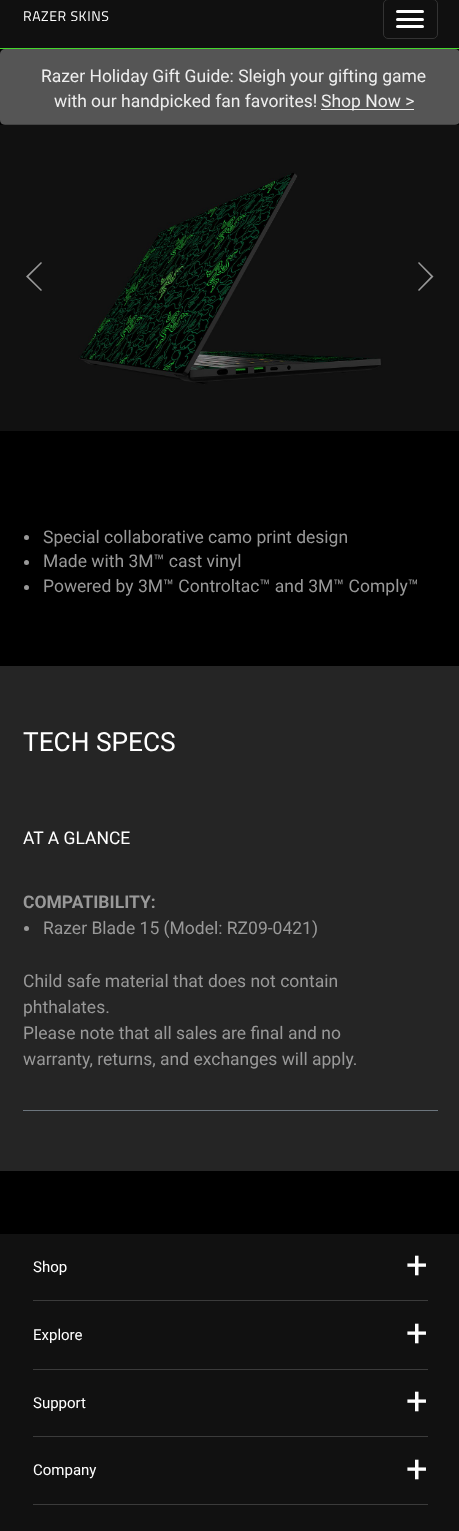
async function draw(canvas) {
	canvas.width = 459;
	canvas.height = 1531;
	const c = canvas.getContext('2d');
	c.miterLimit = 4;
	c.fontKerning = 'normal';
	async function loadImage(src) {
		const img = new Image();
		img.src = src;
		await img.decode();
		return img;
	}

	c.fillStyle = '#000';
	c.fillRect(0, 0, 459, 1531);
	c.fillStyle = '#101010';
	c.fillRect(0, 0, 459, 48);
	c.fillStyle = '#44d62c';
	c.fillRect(0, 48, 459, 1);
	c.letterSpacing = '0.6px';
	c.font = '14px "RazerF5"';
	c.fillStyle = '#fff';
	c.fillText('RAZER SKINS', 23, 21);
	c.beginPath();
	c.roundRect(383.5, -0.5, 54, 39, 4.5);
	c.strokeStyle = '#333';
	c.stroke();
	c.beginPath();
	c.roundRect(396, 10, 28, 3, 1.5);
	c.fill();
	c.beginPath();
	c.roundRect(396, 18, 28, 3, 1.5);
	c.fill();
	c.beginPath();
	c.roundRect(396, 25, 28, 3, 1.5);
	c.fill();
	c.fillStyle = '#555';
	c.beginPath();
	c.roundRect(0, 49, 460, 76, 5);
	c.fill();
	c.letterSpacing = '0px';
	c.font = '17.5px Roboto';
	c.fillStyle = '#eee';
	c.fillText('Razer Holiday Gift Guide: Sleigh your gifting game', 41, 82);
	c.fillText('with our handpicked fan favorites!', 54, 107);
	c.fillRect(321, 109, 93, 1);
	c.fillText('Shop Now >', 321, 107);
	c.drawImage(await loadImage('img1.png'), 0, 124, 459, 307);
	c.fillStyle = '#999';
	c.beginPath();
	c.moveTo(42, 263);
	c.lineTo(41, 262);
	c.lineTo(26, 276.5);
	c.lineTo(41, 291);
	c.lineTo(42, 290);
	c.lineTo(28.5, 276.5);
	c.closePath();
	c.fill();
	c.beginPath();
	c.moveTo(431, 276.5);
	c.lineTo(418, 290);
	c.lineTo(419, 291);
	c.lineTo(433.5, 276.5);
	c.lineTo(419, 262);
	c.lineTo(418, 263);
	c.closePath();
	c.fill();
	c.beginPath();
	c.arc(26.5, 537.5, 2.5, 0, 2 * Math.PI);
	c.fill();
	c.fillText('Special collaborative camo print design', 43, 543);
	c.beginPath();
	c.arc(26.5, 562.5, 2.5, 0, 2 * Math.PI);
	c.fill();
	c.fillText('Made with 3M™ cast vinyl', 43, 567);
	c.beginPath();
	c.arc(26.5, 587.5, 2.5, 0, 2 * Math.PI);
	c.fill();
	c.fillText('Powered by 3M™ Controltac™ and 3M™ Comply™', 43, 592);
	c.fillStyle = '#252525';
	c.fillRect(0, 666, 459, 505);
	c.font = '26.25px Roboto';
	c.fillStyle = '#fff';
	c.fillText('TECH SPECS', 23, 751);
	c.fillStyle = '#6c757d';
	c.fillRect(23, 1110, 415, 1);
	c.font = '17.5px Roboto';
	c.fillStyle = '#fff';
	c.fillText('AT A GLANCE', 23, 844);
	c.font = 'bold 17.5px Roboto';
	c.fillStyle = '#999';
	c.fillText('COMPATIBILITY:', 23, 908);
	c.beginPath();
	c.arc(26.5, 928.5, 2.5, 0, 2 * Math.PI);
	c.fill();
	c.font = '17.5px Roboto';
	for (const [text, x, y] of [
		['Razer Blade 15 (Model: RZ09-0421)', 43, 934],
		['Child safe material that does not contain', 23, 987],
		['phthalates.', 23, 1013],
		['Please note that all sales are final and no', 23, 1039],
		['warranty, returns, and exchanges will apply.', 23, 1065],
	]) {
		c.fillText(text, x, y);
	}
	c.fillStyle = '#111';
	c.fillRect(0, 1234, 459, 297);
	c.fillStyle = '#3b3b3b';
	c.fillRect(33, 1300, 395, 1);
	c.font = '15px Roboto';
	c.fillStyle = '#fff';
	c.fillText('Shop', 33, 1272);
	c.font = '38px Roboto';
	c.fillText('+', 406, 1278);
	c.fillStyle = '#3b3b3b';
	c.fillRect(33, 1369, 395, 1);
	c.font = '15px Roboto';
	c.fillStyle = '#fff';
	c.fillText('Explore', 33, 1340);
	c.font = '38px Roboto';
	c.fillText('+', 406, 1346);
	c.fillStyle = '#3b3b3b';
	c.fillRect(33, 1436, 395, 1);
	c.font = '15px Roboto';
	c.fillStyle = '#fff';
	c.fillText('Support', 33, 1408);
	c.font = '38px Roboto';
	c.fillText('+', 406, 1414);
	c.fillStyle = '#3b3b3b';
	c.fillRect(33, 1504, 395, 1);
	c.font = '15px Roboto';
	c.fillStyle = '#fff';
	c.fillText('Company', 33, 1475);
	c.font = '38px Roboto';
	c.fillText('+', 406, 1482);
}

draw(document.querySelector('canvas'));
